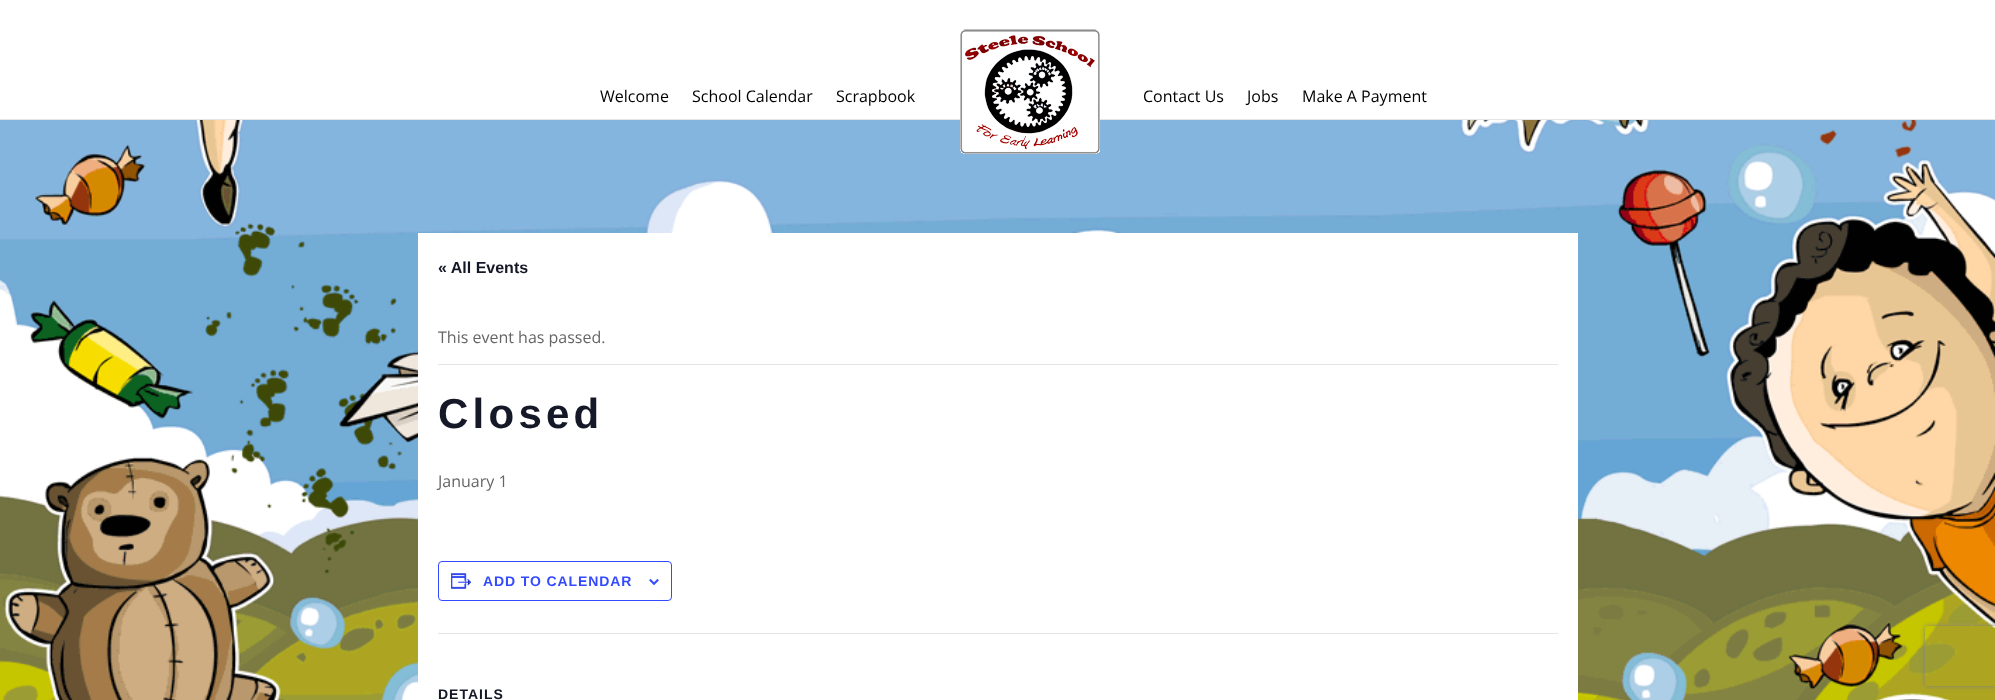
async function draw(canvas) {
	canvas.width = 1995;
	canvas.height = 700;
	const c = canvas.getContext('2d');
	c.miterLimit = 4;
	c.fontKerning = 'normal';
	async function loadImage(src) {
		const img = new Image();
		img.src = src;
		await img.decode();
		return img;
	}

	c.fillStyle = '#fff';
	c.fillRect(0, 0, 1995, 700);
	c.fillStyle = '#e6e6e6';
	c.fillRect(0, 119, 1995, 1);
	c.font = '16px Open Sans';
	c.fillStyle = '#000';
	for (const [text, x, y] of [
		['Welcome', 600, 102],
		['School Calendar', 692, 102],
		['Scrapbook', 836, 102],
	]) {
		c.fillText(text, x, y);
	}
	c.drawImage(await loadImage('img2.png'), 0, 120, 1995, 580);
	c.drawImage(await loadImage('img1.png'), 960, 29, 140, 125);
	for (const [text, x, y] of [
		['Contact Us', 1143, 102],
		['Jobs', 1247, 102],
		['Make A Payment', 1302, 102],
	]) {
		c.fillText(text, x, y);
	}
	c.fillStyle = '#fff';
	c.fillRect(418, 233, 1160, 467);
	c.font = 'bold 16px Liberation Sans';
	c.fillStyle = '#141827';
	c.fillText('« All Events', 438, 273);
	c.fillStyle = '#e4e4e4';
	c.fillRect(438, 364, 1120, 1);
	c.font = '16px Open Sans';
	c.fillStyle = '#666';
	c.fillText('This event has passed.', 438, 343);
	c.letterSpacing = '4.25px';
	c.font = 'bold 42px Liberation Sans';
	c.fillStyle = '#141827';
	c.fillText('Closed', 438, 428);
	c.letterSpacing = '0px';
	c.font = '16px Open Sans';
	c.fillStyle = '#666';
	c.fillText('January 1', 438, 487);
	c.beginPath();
	c.roundRect(438.5, 561.5, 233, 39, 3.5);
	c.strokeStyle = '#334aff';
	c.stroke();
	c.drawImage(await loadImage('img3.png'), 451, 573, 21, 16);
	c.letterSpacing = '0.9px';
	c.font = 'bold 14px Liberation Sans';
	c.fillStyle = '#334aff';
	c.fillText('ADD TO CALENDAR', 483, 586);
	c.drawImage(await loadImage('img4.png'), 649, 579, 10, 6);
	c.fillStyle = '#e4e4e4';
	c.fillRect(438, 633, 1120, 1);
	c.letterSpacing = '1px';
	c.fillStyle = '#141827';
	c.fillText('DETAILS', 438, 699);
	c.save();
	c.beginPath();
	c.moveTo(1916, 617);
	c.lineTo(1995, 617);
	c.lineTo(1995, 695);
	c.lineTo(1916, 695);
	c.closePath();
	c.moveTo(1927, 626);
	c.lineTo(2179, 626);
	c.bezierCurveTo(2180, 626, 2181, 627, 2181, 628);
	c.lineTo(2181, 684);
	c.bezierCurveTo(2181, 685, 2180, 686, 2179, 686);
	c.lineTo(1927, 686);
	c.bezierCurveTo(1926, 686, 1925, 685, 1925, 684);
	c.lineTo(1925, 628);
	c.bezierCurveTo(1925, 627, 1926, 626, 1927, 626);
	c.closePath();
	c.clip('evenodd');
	c.fillStyle = '#808080';
	c.filter = 'blur(2.5px)';
	c.beginPath();
	c.roundRect(1925, 626, 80, 60, 2);
	c.fill();
	c.filter = 'none';
	c.restore();
}

draw(document.querySelector('canvas'));
